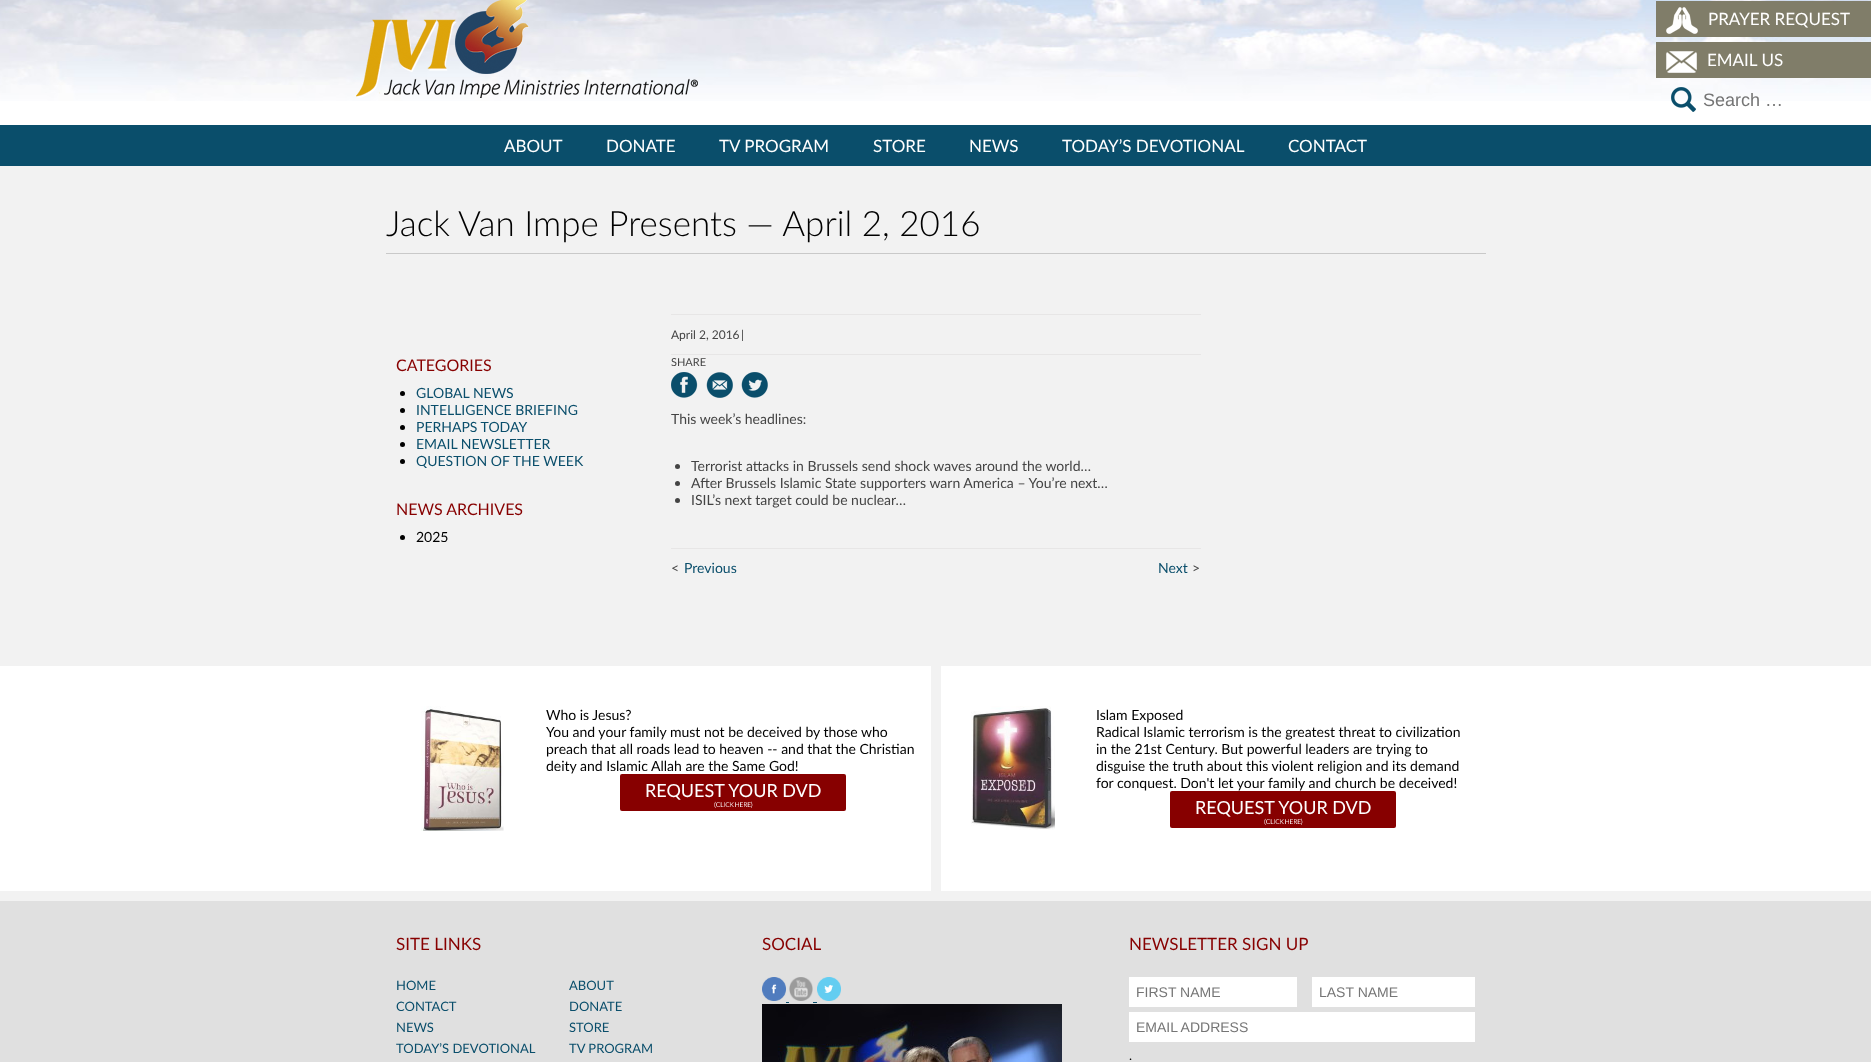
async function draw(canvas) {
	canvas.width = 1871;
	canvas.height = 1062;
	const c = canvas.getContext('2d');
	c.miterLimit = 4;
	c.fontKerning = 'normal';
	async function loadImage(src) {
		const img = new Image();
		img.src = src;
		await img.decode();
		return img;
	}

	c.fillStyle = '#fff';
	c.fillRect(0, 0, 1871, 1062);
	c.drawImage(await loadImage('img1.png'), 0, 0, 1871, 101);
	c.drawImage(await loadImage('img2.png'), 356, 0, 342, 98);
	c.fillStyle = '#807d69';
	c.fillRect(1656, 1, 215, 36);
	c.drawImage(await loadImage('img3.png'), 1666, 7, 32, 27);
	c.font = '17px Lato';
	c.fillStyle = '#fff';
	c.fillText('PRAYER REQUEST', 1708, 25);
	c.fillStyle = '#807d69';
	c.fillRect(1656, 42, 215, 36);
	c.drawImage(await loadImage('img4.png'), 1666, 51, 31, 22);
	c.fillStyle = '#fff';
	c.fillText('EMAIL US', 1707, 66);
	c.drawImage(await loadImage('img5.png'), 1671, 87, 25, 25);
	c.font = '18px Liberation Sans';
	c.fillStyle = '#757575';
	c.fillText('Search …', 1703, 106);
	c.fillStyle = '#0a4e6b';
	c.fillRect(0, 125, 1871, 41);
	c.font = '17px Lato';
	c.fillStyle = '#fff';
	for (const [text, x, y] of [
		['ABOUT', 504, 152],
		['DONATE', 606, 152],
		['TV PROGRAM', 719, 152],
		['STORE', 873, 152],
		['NEWS', 969, 152],
		['TODAY’S DEVOTIONAL', 1062, 152],
		['CONTACT', 1288, 152],
	]) {
		c.fillText(text, x, y);
	}
	c.fillStyle = '#f2f2f2';
	c.fillRect(0, 166, 1871, 500);
	c.fillStyle = '#c9c9c9';
	c.fillRect(386, 253, 1100, 1);
	c.font = '300 35px Lato';
	c.fillStyle = '#000';
	c.fillText('Jack Van Impe Presents — April 2, 2016', 386, 236);
	c.fillStyle = '#e7e6e6';
	c.fillRect(671, 314, 530, 1);
	c.fillRect(671, 354, 530, 1);
	c.font = '12px Lato';
	c.fillStyle = '#444';
	c.fillText('April 2, 2016', 671, 339);
	c.fillText('|', 741, 339);
	c.font = '16px Lato';
	c.fillStyle = '#870000';
	c.fillText('CATEGORIES', 396, 371);
	c.fillStyle = '#000';
	c.beginPath();
	c.arc(402.5, 393.5, 2.5, 0, 2 * Math.PI);
	c.fill();
	c.font = '14px Lato';
	c.fillStyle = '#0a4e6b';
	c.fillText('GLOBAL NEWS', 416, 398);
	c.fillStyle = '#000';
	c.beginPath();
	c.arc(402.5, 410.5, 2.5, 0, 2 * Math.PI);
	c.fill();
	c.fillStyle = '#0a4e6b';
	c.fillText('INTELLIGENCE BRIEFING', 416, 415);
	c.fillStyle = '#000';
	c.beginPath();
	c.arc(402.5, 427.5, 2.5, 0, 2 * Math.PI);
	c.fill();
	c.fillStyle = '#0a4e6b';
	c.fillText('PERHAPS TODAY', 416, 432);
	c.fillStyle = '#000';
	c.beginPath();
	c.arc(402.5, 444.5, 2.5, 0, 2 * Math.PI);
	c.fill();
	c.fillStyle = '#0a4e6b';
	c.fillText('EMAIL NEWSLETTER', 416, 449);
	c.fillStyle = '#000';
	c.beginPath();
	c.arc(402.5, 461.5, 2.5, 0, 2 * Math.PI);
	c.fill();
	c.fillStyle = '#0a4e6b';
	c.fillText('QUESTION OF THE WEEK', 416, 466);
	c.font = '16px Lato';
	c.fillStyle = '#870000';
	c.fillText('NEWS ARCHIVES', 396, 515);
	c.fillStyle = '#000';
	c.beginPath();
	c.arc(402.5, 537.5, 2.5, 0, 2 * Math.PI);
	c.fill();
	c.font = '14px Lato';
	c.fillText('2025', 416, 542);
	c.font = '11px Lato';
	c.fillStyle = '#444';
	c.fillText('SHARE', 671, 366);
	c.drawImage(await loadImage('img6.png'), 671, 372, 27, 26);
	c.drawImage(await loadImage('img7.png'), 706, 372, 27, 26);
	c.drawImage(await loadImage('img8.png'), 741, 372, 27, 26);
	c.font = '14px Lato';
	c.fillText('This week’s headlines:', 671, 424);
	c.beginPath();
	c.arc(677.5, 466.5, 2.5, 0, 2 * Math.PI);
	c.fill();
	c.fillText('Terrorist attacks in Brussels send shock waves around the world…', 691, 471);
	c.beginPath();
	c.arc(677.5, 483.5, 2.5, 0, 2 * Math.PI);
	c.fill();
	c.fillText('After Brussels Islamic State supporters warn America – You’re next…', 691, 488);
	c.beginPath();
	c.arc(677.5, 500.5, 2.5, 0, 2 * Math.PI);
	c.fill();
	c.fillText('ISIL’s next target could be nuclear…', 691, 505);
	c.fillStyle = '#e7e6e6';
	c.fillRect(671, 548, 530, 1);
	c.fillStyle = '#444';
	c.fillText('<', 671, 573);
	c.fillStyle = '#0a4e6b';
	c.fillText('Previous', 684, 573);
	c.fillText('Next', 1158, 573);
	c.fillStyle = '#444';
	c.fillText('>', 1192, 573);
	c.fillStyle = '#f2f2f2';
	c.fillRect(931, 666, 10, 225);
	c.fillRect(0, 891, 1871, 10);
	c.drawImage(await loadImage('img9.png'), 421, 706, 83, 125);
	c.fillStyle = '#000';
	for (const [text, x, y] of [
		['Who is Jesus?', 546, 720],
		['You and your family must not be deceived by those who', 546, 737],
		['preach that all roads lead to heaven -- and that the Christian', 546, 754],
		['deity and Islamic Allah are the Same God!', 546, 771],
	]) {
		c.fillText(text, x, y);
	}
	c.fillStyle = '#870000';
	c.beginPath();
	c.roundRect(620, 774, 226, 37, 2);
	c.fill();
	c.drawImage(await loadImage('img10.png'), 714, 801, 39, 7);
	c.font = '18px Lato';
	c.fillStyle = '#fff';
	c.fillText('REQUEST YOUR DVD', 645, 797);
	c.drawImage(await loadImage('img11.png'), 971, 706, 84, 124);
	c.font = '14px Lato';
	c.fillStyle = '#000';
	for (const [text, x, y] of [
		['Islam Exposed', 1096, 720],
		['Radical Islamic terrorism is the greatest threat to civilization', 1096, 737],
		['in the 21st Century. But powerful leaders are trying to', 1096, 754],
		['disguise the truth about this violent religion and its demand', 1096, 771],
		['for conquest. Don\'t let your family and church be deceived!', 1096, 788],
	]) {
		c.fillText(text, x, y);
	}
	c.fillStyle = '#870000';
	c.beginPath();
	c.roundRect(1170, 791, 226, 37, 2);
	c.fill();
	c.drawImage(await loadImage('img10.png'), 1264, 818, 39, 7);
	c.font = '18px Lato';
	c.fillStyle = '#fff';
	c.fillText('REQUEST YOUR DVD', 1195, 814);
	c.fillStyle = '#e0e0e0';
	c.fillRect(0, 901, 1871, 161);
	c.font = '17px Lato';
	c.fillStyle = '#870000';
	c.fillText('SITE LINKS', 396, 950);
	c.font = '13px Lato';
	c.fillStyle = '#0a4e6b';
	for (const [text, x, y] of [
		['HOME', 396, 990],
		['ABOUT', 569, 990],
		['CONTACT', 396, 1011],
		['DONATE', 569, 1011],
		['NEWS', 396, 1032],
		['STORE', 569, 1032],
		['TODAY’S DEVOTIONAL', 396, 1053],
		['TV PROGRAM', 569, 1053],
	]) {
		c.fillText(text, x, y);
	}
	c.font = '17px Lato';
	c.fillStyle = '#870000';
	c.fillText('SOCIAL', 762, 950);
	c.drawImage(await loadImage('img12.png'), 762, 977, 24, 24);
	c.drawImage(await loadImage('img13.png'), 789, 977, 24, 24);
	c.drawImage(await loadImage('img14.png'), 817, 977, 24, 24);
	c.fillStyle = '#0a4e6b';
	c.fillRect(786, 1002, 3, 1);
	c.fillRect(813, 1002, 4, 1);
	c.drawImage(await loadImage('img15.png'), 762, 1004, 300, 58);
	c.fillStyle = '#870000';
	c.fillText('NEWSLETTER SIGN UP', 1129, 950);
	c.fillStyle = '#fff';
	c.fillRect(1129, 977, 168, 30);
	c.font = '14px Liberation Sans';
	c.fillStyle = '#757575';
	c.fillText('FIRST NAME', 1136, 997);
	c.fillStyle = '#fff';
	c.fillRect(1312, 977, 163, 30);
	c.fillStyle = '#757575';
	c.fillText('LAST NAME', 1319, 997);
	c.fillStyle = '#fff';
	c.fillRect(1129, 1012, 346, 30);
	c.fillStyle = '#757575';
	c.fillText('EMAIL ADDRESS', 1136, 1032);
	c.font = '13px Lato';
	c.fillStyle = '#000';
	c.fillText('.', 1129, 1060);
}

draw(document.querySelector('canvas'));
